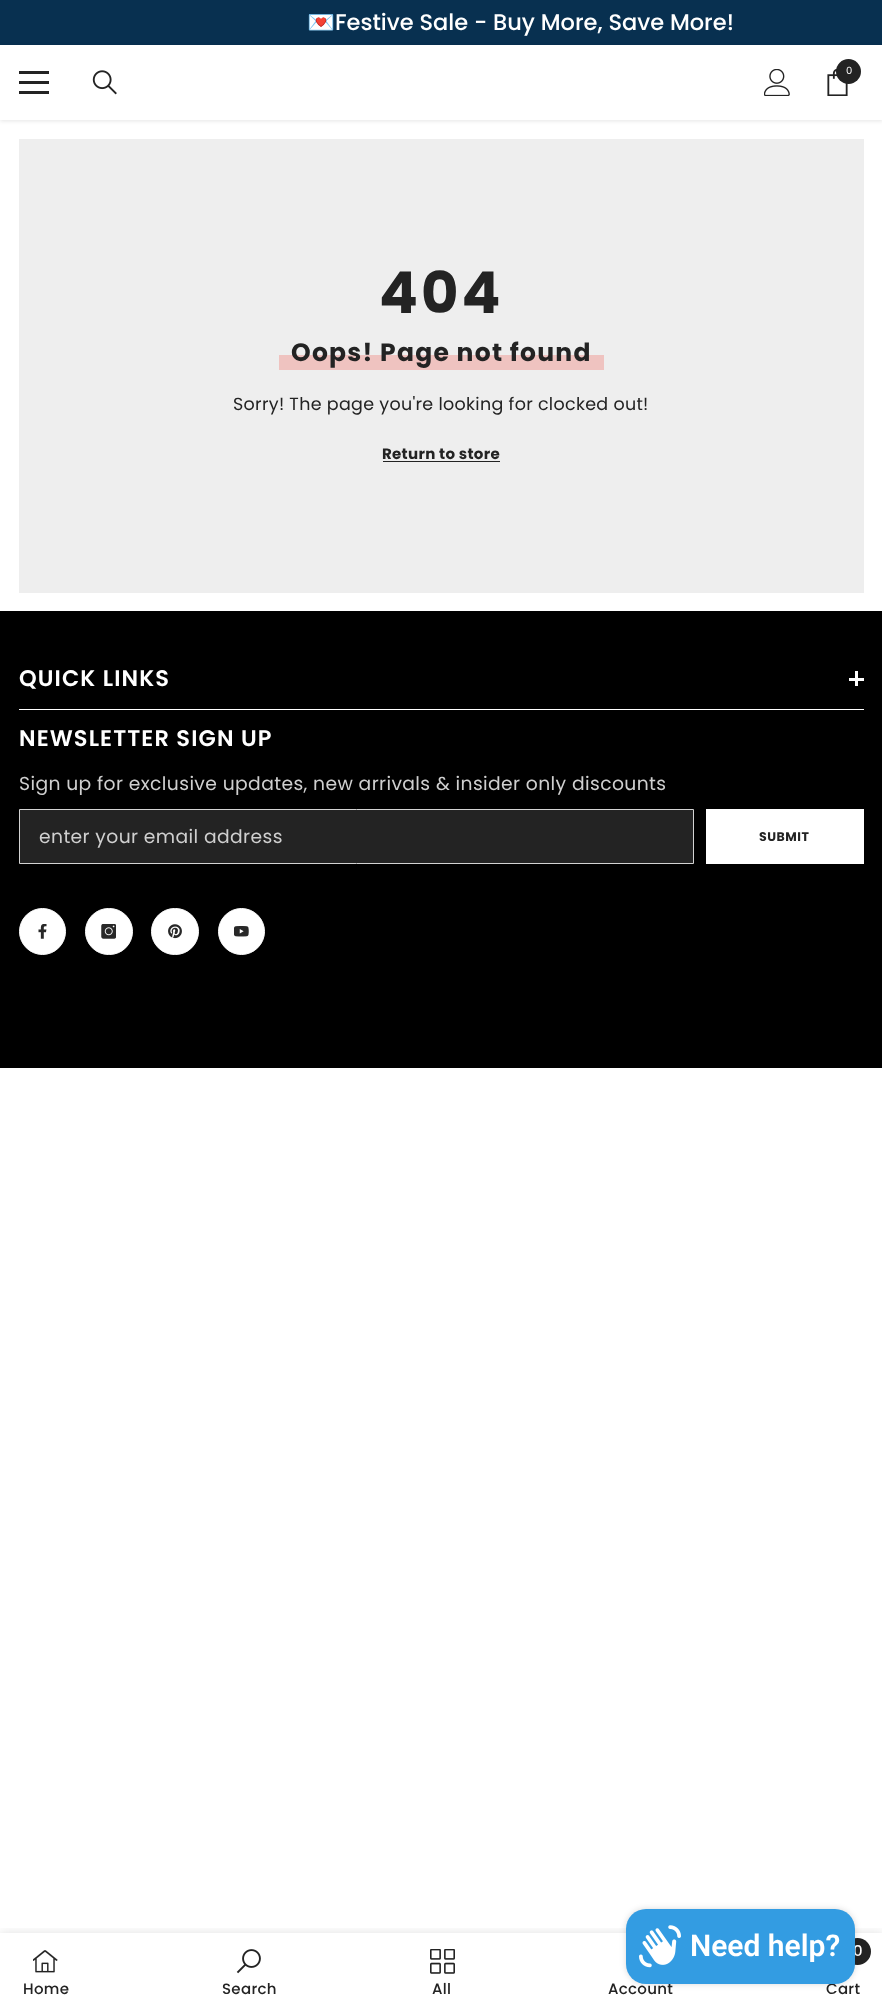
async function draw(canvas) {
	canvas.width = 882;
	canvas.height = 2010;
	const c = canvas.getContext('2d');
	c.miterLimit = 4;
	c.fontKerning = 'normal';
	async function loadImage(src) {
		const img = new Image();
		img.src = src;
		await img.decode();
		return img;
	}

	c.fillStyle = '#fff';
	c.fillRect(0, 0, 882, 2010);
	c.fillStyle = '#083050';
	c.fillRect(0, 0, 882, 45);
	c.font = '22.5px Noto Color Emoji';
	c.fillStyle = '#fff';
	c.fillText('💌', 307, 30);
	c.font = '500 22.5px Poppins';
	c.fillText('Festive Sale - Buy More, Save More!', 335, 30);
	c.save();
	c.beginPath();
	c.moveTo(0, 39);
	c.lineTo(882, 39);
	c.lineTo(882, 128);
	c.lineTo(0, 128);
	c.closePath();
	c.moveTo(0, 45);
	c.lineTo(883, 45);
	c.lineTo(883, 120);
	c.lineTo(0, 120);
	c.closePath();
	c.clip('evenodd');
	c.fillStyle = '#0000001a';
	c.filter = 'blur(2px)';
	c.beginPath();
	c.rect(0, 46, 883, 75);
	c.fill();
	c.filter = 'none';
	c.restore();
	for (const [x, y, w, h, color] of [
		[19, 81, 30, 3, '#232323'],
		[19, 71, 30, 3, '#232323'],
		[19, 91, 30, 3, '#232323'],
	]) {
		c.fillStyle = color;
		c.fillRect(x, y, w, h);
	}
	c.drawImage(await loadImage('img1.png'), 92, 70, 25, 25);
	c.drawImage(await loadImage('img2.png'), 764, 69, 26, 27);
	c.drawImage(await loadImage('img3.png'), 827, 69, 21, 27);
	c.beginPath();
	c.arc(848.5, 71.5, 12.5, 0, 2 * Math.PI);
	c.fill();
	c.font = '10px Poppins';
	c.fillStyle = '#fff';
	c.fillText('0', 846, 74);
	c.fillStyle = '#eee';
	c.fillRect(19, 139, 845, 454);
	c.letterSpacing = '3px';
	c.font = 'bold 57.5px Poppins';
	c.fillStyle = '#232323';
	c.fillText('404', 379, 313);
	c.fillStyle = '#efc3c0';
	c.fillRect(279, 355, 325, 15);
	c.letterSpacing = '1.25px';
	c.font = 'bold 25px Poppins';
	c.fillStyle = '#232323';
	c.fillText('Oops! Page not found', 291, 361);
	c.letterSpacing = '0.3px';
	c.font = '17.5px Poppins';
	c.fillText('Sorry! The page you\'re looking for clocked out!', 233, 410);
	c.font = 'bold 15px Poppins';
	c.fillText('Return to store', 382, 459);
	for (const [x, y, w, h, color] of [
		[383, 461, 117, 1, '#232323'],
		[0, 611, 882, 457, '#000'],
		[19, 709, 845, 1, '#fff'],
	]) {
		c.fillStyle = color;
		c.fillRect(x, y, w, h);
	}
	c.letterSpacing = '1.1px';
	c.font = '600 22.5px Poppins';
	c.fillText('QUICK LINKS', 19, 686);
	c.fillRect(855, 671, 3, 15);
	c.fillRect(849, 678, 15, 3);
	c.fillText('NEWSLETTER SIGN UP', 19, 746);
	c.letterSpacing = '0.38px';
	c.font = '18.75px Poppins';
	c.fillStyle = '#cfcfcf';
	c.fillText('Sign up for exclusive updates, new arrivals & insider only discounts', 19, 790);
	c.fillStyle = '#232323';
	c.beginPath();
	c.rect(19.5, 809.5, 674, 54);
	c.fill();
	c.strokeStyle = '#d3d3d3';
	c.stroke();
	c.fillStyle = '#cfcfcf';
	c.fillText('enter your email address', 39, 843);
	c.fillStyle = '#fff';
	c.fillRect(706, 809, 158, 55);
	c.letterSpacing = '0.5px';
	c.font = 'bold 12.5px Poppins';
	c.fillStyle = '#232323';
	c.fillText('SUBMIT', 759, 841);
	c.fillStyle = '#fff';
	c.beginPath();
	c.arc(42.5, 931.5, 23, 0, 2 * Math.PI);
	c.fill();
	c.strokeStyle = '#fff';
	c.stroke();
	c.drawImage(await loadImage('img4.png'), 38, 924, 9, 15);
	c.beginPath();
	c.roundRect(85.5, 908.5, 47, 46, 23);
	c.fill();
	c.stroke();
	c.drawImage(await loadImage('img5.png'), 101, 924, 15, 15);
	c.beginPath();
	c.roundRect(151.5, 908.5, 47, 46, 23);
	c.fill();
	c.stroke();
	c.drawImage(await loadImage('img6.png'), 168, 924, 14, 15);
	c.beginPath();
	c.arc(241.5, 931.5, 23, 0, 2 * Math.PI);
	c.fill();
	c.stroke();
	c.drawImage(await loadImage('img7.png'), 234, 926, 15, 11);
	c.save();
	c.beginPath();
	c.rect(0, 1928, 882, 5);
	c.clip();
	c.fillStyle = '#0000001f';
	c.filter = 'blur(5.5px)';
	c.beginPath();
	c.rect(0, 1933, 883, 77);
	c.fill();
	c.filter = 'none';
	c.restore();
	c.drawImage(await loadImage('img8.png'), 33, 1950, 25, 23);
	c.letterSpacing = '0.3px';
	c.font = '500 15px Poppins';
	c.fillStyle = '#232323';
	c.fillText('Home', 23, 1994);
	c.drawImage(await loadImage('img9.png'), 236, 1949, 25, 25);
	c.fillText('Search', 222, 1994);
	c.drawImage(await loadImage('img10.png'), 430, 1949, 25, 25);
	c.fillText('All', 432, 1994);
	c.fillText('Account', 608, 1994);
	c.beginPath();
	c.arc(857.5, 1951.5, 13.5, 0, 2 * Math.PI);
	c.fill();
	c.letterSpacing = '0px';
	c.fillStyle = '#fff';
	c.fillText('0', 853, 1956);
	c.letterSpacing = '0.3px';
	c.fillStyle = '#232323';
	c.fillText('Cart', 826, 1994);
	c.fillStyle = '#00000026';
	c.filter = 'blur(3px)';
	c.beginPath();
	c.roundRect(626, 1909, 229, 75, 20);
	c.fill();
	c.filter = 'none';
	c.fillStyle = '#339ce2';
	c.beginPath();
	c.roundRect(626, 1909, 229, 75, 20);
	c.fill();
	c.drawImage(await loadImage('img11.png'), 639, 1925, 42, 43);
	c.letterSpacing = '0px';
	c.font = '600 30px Roboto';
	c.fillStyle = '#fff';
	c.fillText('Need help?', 690, 1956);
}

draw(document.querySelector('canvas'));
